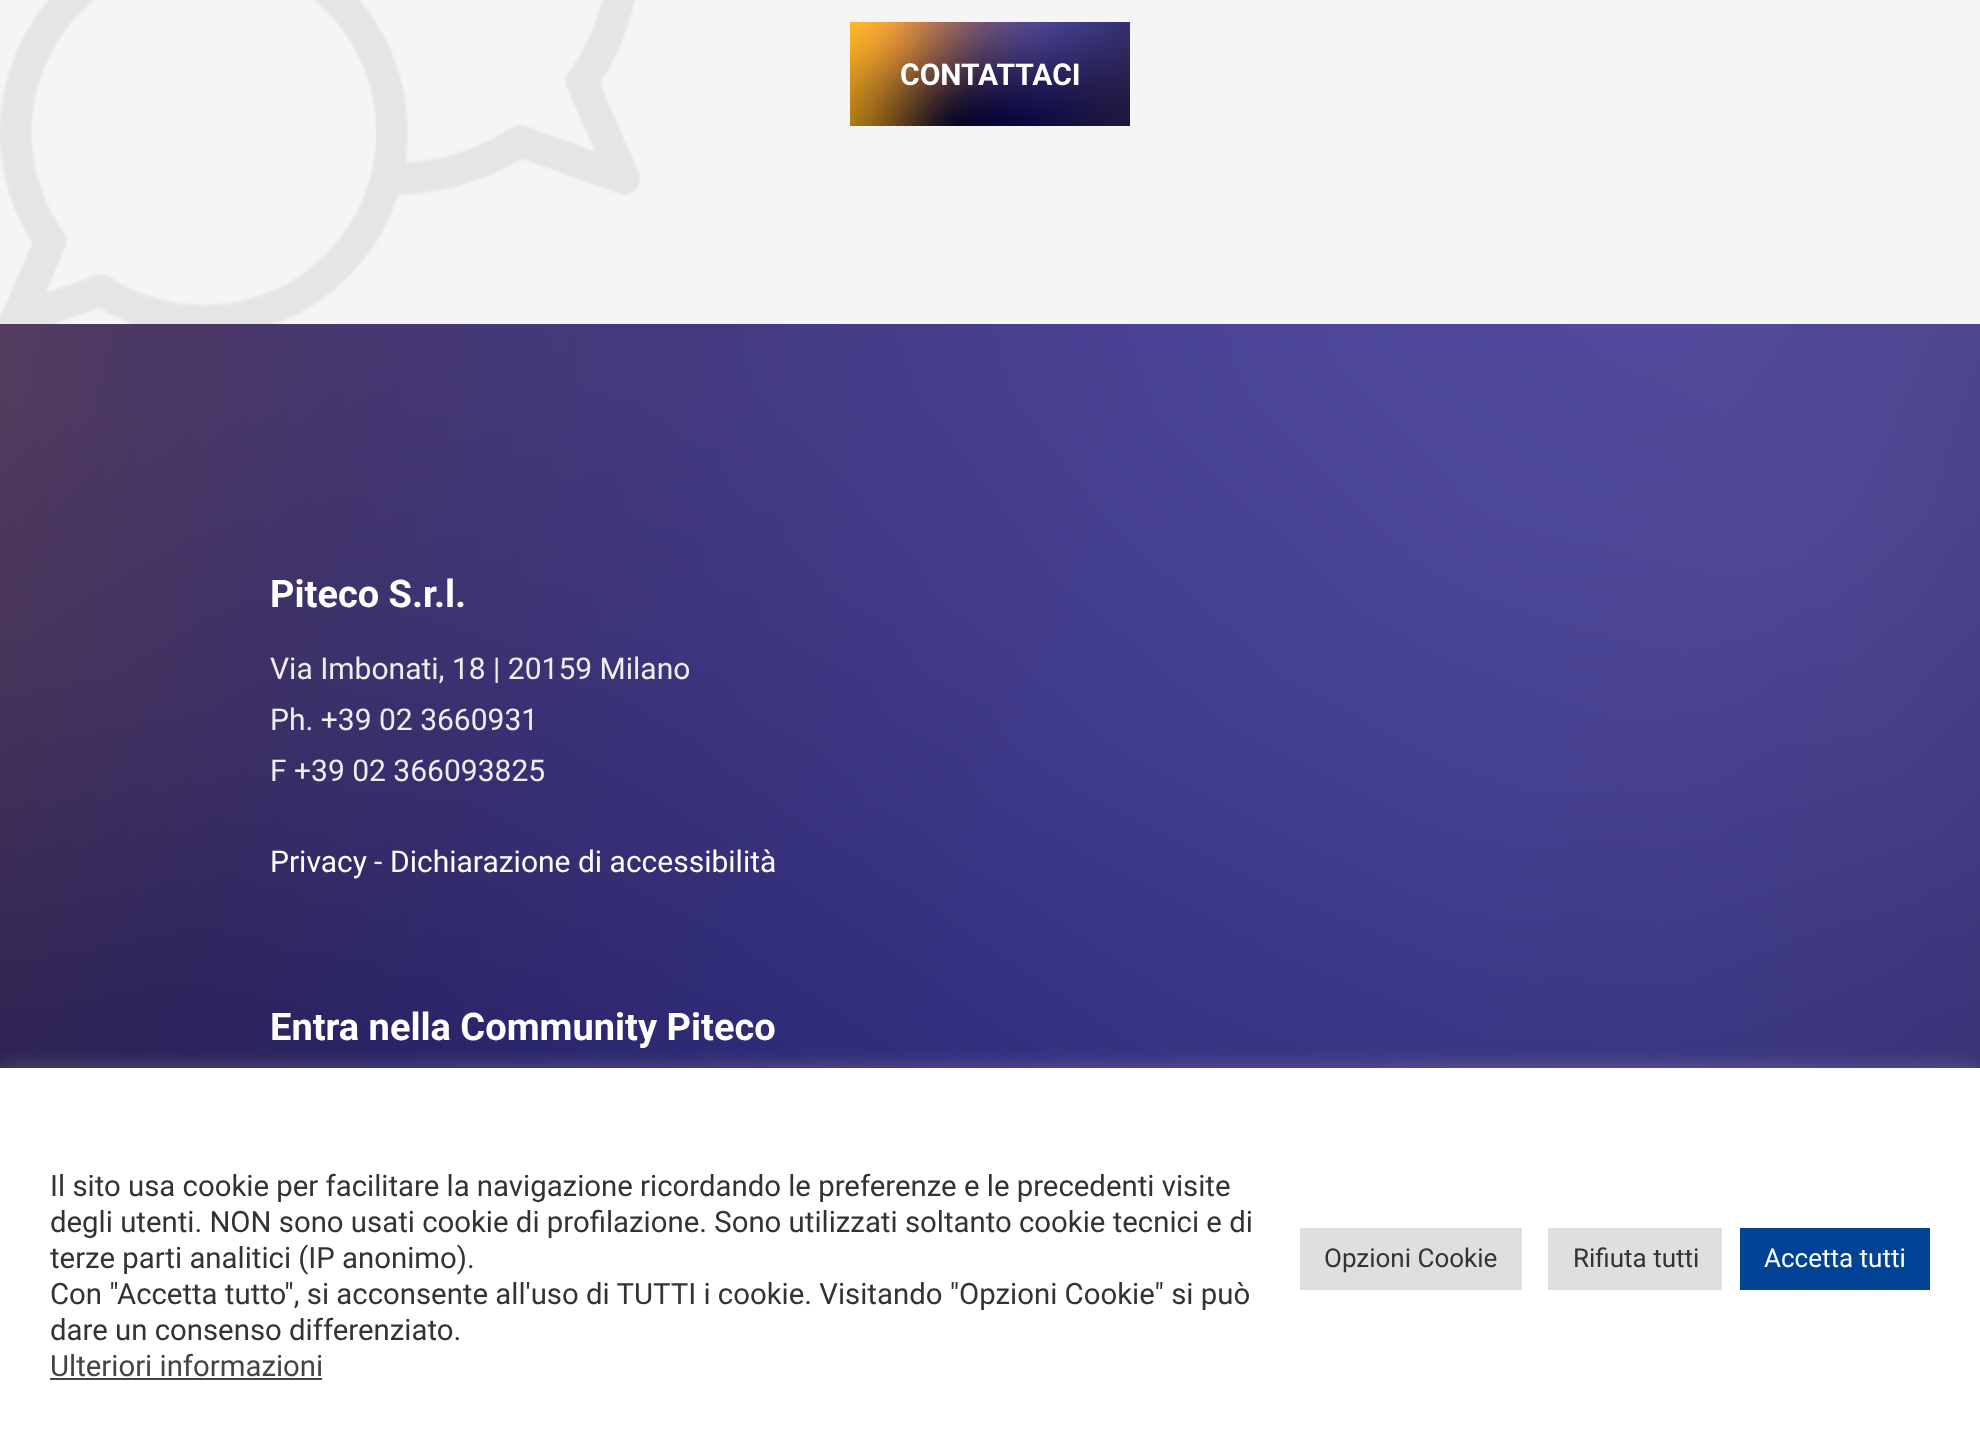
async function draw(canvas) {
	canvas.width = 1980;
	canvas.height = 1447;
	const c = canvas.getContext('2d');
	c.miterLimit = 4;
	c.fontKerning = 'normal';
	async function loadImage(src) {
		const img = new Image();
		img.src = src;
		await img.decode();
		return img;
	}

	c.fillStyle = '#f5f5f5';
	c.fillRect(0, 0, 1980, 1447);
	c.drawImage(await loadImage('img1.png'), 0, 0, 641, 324);
	c.drawImage(await loadImage('img2.png'), 850, 22, 280, 104);
	c.font = 'bold 30px Roboto';
	c.fillStyle = '#fff';
	c.fillText('CONTATTACI', 900, 85);
	c.drawImage(await loadImage('img3.png'), 0, 324, 1980, 744);
	c.font = 'bold 38px Roboto';
	c.fillText('Piteco S.r.l.', 270, 607);
	c.font = '30px Roboto';
	c.fillStyle = '#eee';
	for (const [text, x, y] of [
		['Via Imbonati, 18 | 20159 Milano', 270, 679],
		['Ph. +39 02 3660931', 270, 730],
		['F +39 02 366093825', 270, 781],
	]) {
		c.fillText(text, x, y);
	}
	c.fillStyle = '#fff';
	c.fillText('Privacy', 270, 872);
	c.fillStyle = '#eee';
	c.fillText('-', 374, 872);
	c.fillStyle = '#fff';
	c.fillText('Dichiarazione di accessibilità', 390, 872);
	c.font = 'bold 38px Roboto';
	c.fillText('Entra nella Community Piteco', 270, 1040);
	c.fillStyle = '#acabab4d';
	c.filter = 'blur(10px)';
	c.beginPath();
	c.rect(0, 1066, 1980, 380);
	c.fill();
	c.filter = 'none';
	c.fillStyle = '#fff';
	c.fillRect(0, 1068, 1980, 379);
	c.font = '29.35px Roboto';
	c.fillStyle = '#333';
	for (const [text, x, y] of [
		['Il sito usa cookie per facilitare la navigazione ricordando le preferenze e le precedenti visite', 50, 1196],
		['degli utenti. NON sono usati cookie di profilazione. Sono utilizzati soltanto cookie tecnici e di', 50, 1232],
		['terze parti analitici (IP anonimo).', 50, 1268],
		['Con "Accetta tutto", si acconsente all\'uso di TUTTI i cookie. Visitando "Opzioni Cookie" si può', 50, 1304],
		['dare un consenso differenziato.', 50, 1340],
	]) {
		c.fillText(text, x, y);
	}
	c.fillStyle = '#444';
	c.fillText('Ulteriori informazioni', 50, 1376);
	c.fillRect(50, 1378, 272, 2);
	c.fillStyle = '#dedfe0';
	c.fillRect(1300, 1228, 222, 62);
	c.font = '26px Roboto';
	c.fillStyle = '#333';
	c.fillText('Opzioni Cookie', 1324, 1267);
	c.fillStyle = '#dedfe0';
	c.fillRect(1548, 1228, 174, 62);
	c.fillStyle = '#333';
	c.fillText('Rifiuta tutti', 1573, 1267);
	c.fillStyle = '#004396';
	c.fillRect(1740, 1228, 190, 62);
	c.fillStyle = '#fff';
	c.fillText('Accetta tutti', 1764, 1267);
}

draw(document.querySelector('canvas'));
